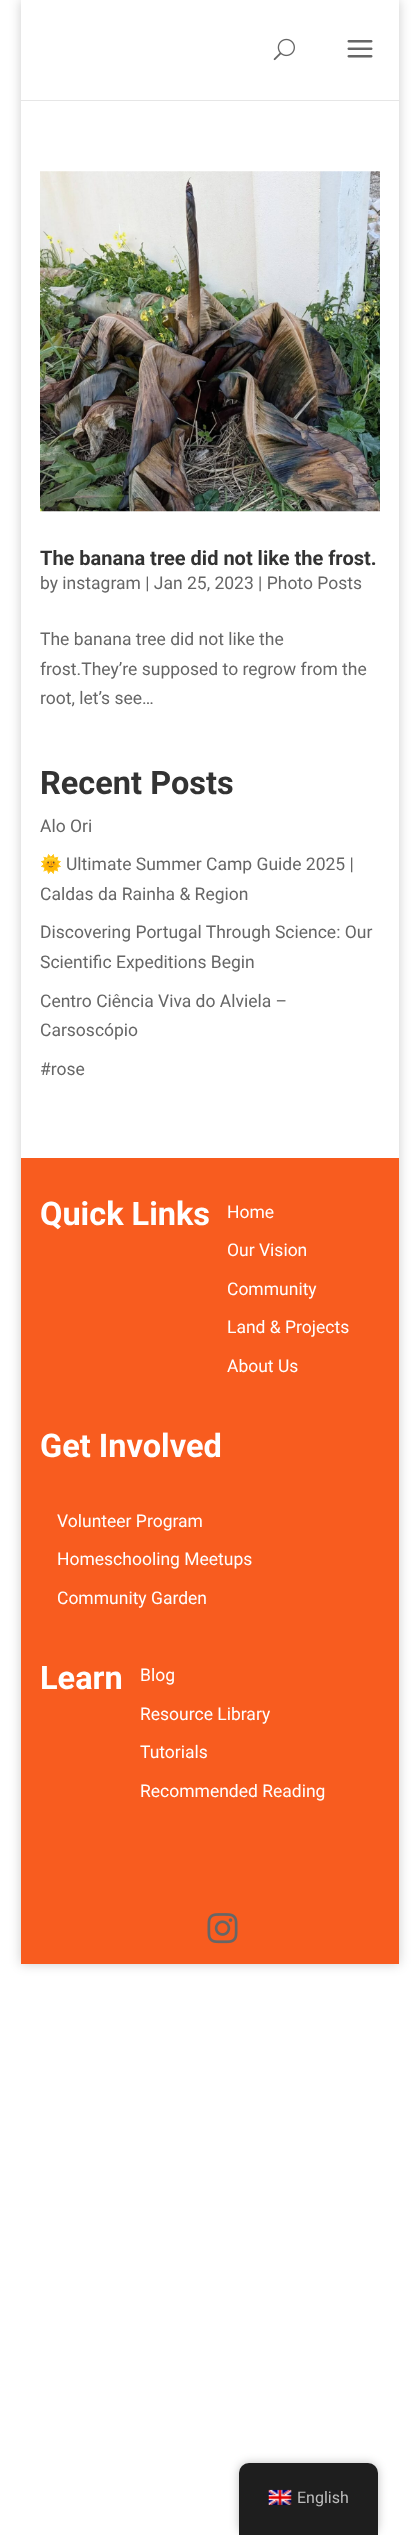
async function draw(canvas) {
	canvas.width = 420;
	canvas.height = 2535;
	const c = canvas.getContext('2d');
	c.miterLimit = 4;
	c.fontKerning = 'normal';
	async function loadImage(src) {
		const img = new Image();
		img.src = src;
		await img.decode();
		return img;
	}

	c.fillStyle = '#fff';
	c.fillRect(0, 0, 420, 2535);
	c.fillStyle = '#00000033';
	c.filter = 'blur(6px)';
	c.beginPath();
	c.rect(21, 0, 378, 1964);
	c.fill();
	c.filter = 'none';
	c.fillStyle = '#e6e6e6';
	c.beginPath();
	c.moveTo(21, 1);
	c.lineTo(21, 101);
	c.lineTo(399, 101);
	c.lineTo(399, 1);
	c.lineTo(399, 100);
	c.lineTo(21, 100);
	c.closePath();
	c.fill();
	c.fillStyle = '#fff';
	c.fillRect(21, 0, 378, 100);
	c.drawImage(await loadImage('img1.png'), 273, 38, 22, 23);
	c.drawImage(await loadImage('img2.png'), 347, 40, 26, 18);
	c.fillRect(21, 101, 378, 1057);
	c.drawImage(await loadImage('img3.png'), 40, 171, 340, 341);
	c.font = 'bold 20px Roboto';
	c.fillStyle = '#333';
	c.fillText('The banana tree did not like the frost.', 40, 565);
	c.font = '17.5px Roboto';
	c.fillStyle = '#666';
	for (const [text, x, y] of [
		['by instagram | Jan 25, 2023 | Photo Posts', 40, 589],
		['The banana tree did not like the', 40, 645],
		['frost.They’re supposed to regrow from the', 40, 675],
		['root, let’s see…', 40, 704],
	]) {
		c.fillText(text, x, y);
	}
	c.font = 'bold 32.5px Roboto';
	c.fillStyle = '#333';
	c.fillText('Recent Posts', 40, 794);
	c.font = '17.5px Roboto';
	c.fillStyle = '#666';
	c.fillText('Alo Ori', 40, 832);
	c.font = '17.5px Noto Color Emoji';
	c.fillText('🌞', 40, 870);
	c.font = '17.5px Roboto';
	for (const [text, x, y] of [
		['Ultimate Summer Camp Guide 2025 |', 66, 870],
		['Caldas da Rainha & Region', 40, 900],
		['Discovering Portugal Through Science: Our', 40, 938],
		['Scientific Expeditions Begin', 40, 968],
		['Centro Ciência Viva do Alviela –', 40, 1007],
		['Carsoscópio', 40, 1036],
		['#rose', 40, 1075],
	]) {
		c.fillText(text, x, y);
	}
	c.fillStyle = '#f85c1f';
	c.fillRect(21, 1158, 378, 806);
	c.font = 'bold 32.5px Roboto';
	c.fillStyle = '#fff';
	c.fillText('Quick Links', 40, 1225);
	c.font = '17.5px Roboto';
	for (const [text, x, y] of [
		['Home', 227, 1218],
		['Our Vision', 227, 1256],
		['Community', 227, 1295],
		['Land & Projects', 227, 1333],
		['About Us', 227, 1372],
	]) {
		c.fillText(text, x, y);
	}
	c.font = 'bold 32.5px Roboto';
	c.fillText('Get Involved', 40, 1457);
	c.font = '17.5px Roboto';
	for (const [text, x, y] of [
		['Volunteer Program', 57, 1527],
		['Homeschooling Meetups', 57, 1565],
		['Community Garden', 57, 1604],
	]) {
		c.fillText(text, x, y);
	}
	c.font = 'bold 32.5px Roboto';
	c.fillText('Learn', 40, 1689);
	c.font = '17.5px Roboto';
	for (const [text, x, y] of [
		['Blog', 140, 1681],
		['Resource Library', 140, 1720],
		['Tutorials', 140, 1758],
		['Recommended Reading', 140, 1797],
	]) {
		c.fillText(text, x, y);
	}
	c.drawImage(await loadImage('img4.png'), 207, 1913, 31, 31);
	c.fillStyle = '#00000040';
	c.filter = 'blur(5px)';
	c.beginPath();
	c.roundRect(239, 2463, 139, 72, 10);
	c.fill();
	c.filter = 'none';
	c.fillStyle = '#1e1e1e';
	c.beginPath();
	c.roundRect(239, 2463, 139, 72, [10, 10, 0, 0]);
	c.fill();
	c.drawImage(await loadImage('img5.png'), 268, 2489, 24, 16);
	c.font = '16px Roboto';
	c.fillStyle = '#bdbdbd';
	c.fillText('English', 297, 2503);
}

draw(document.querySelector('canvas'));
